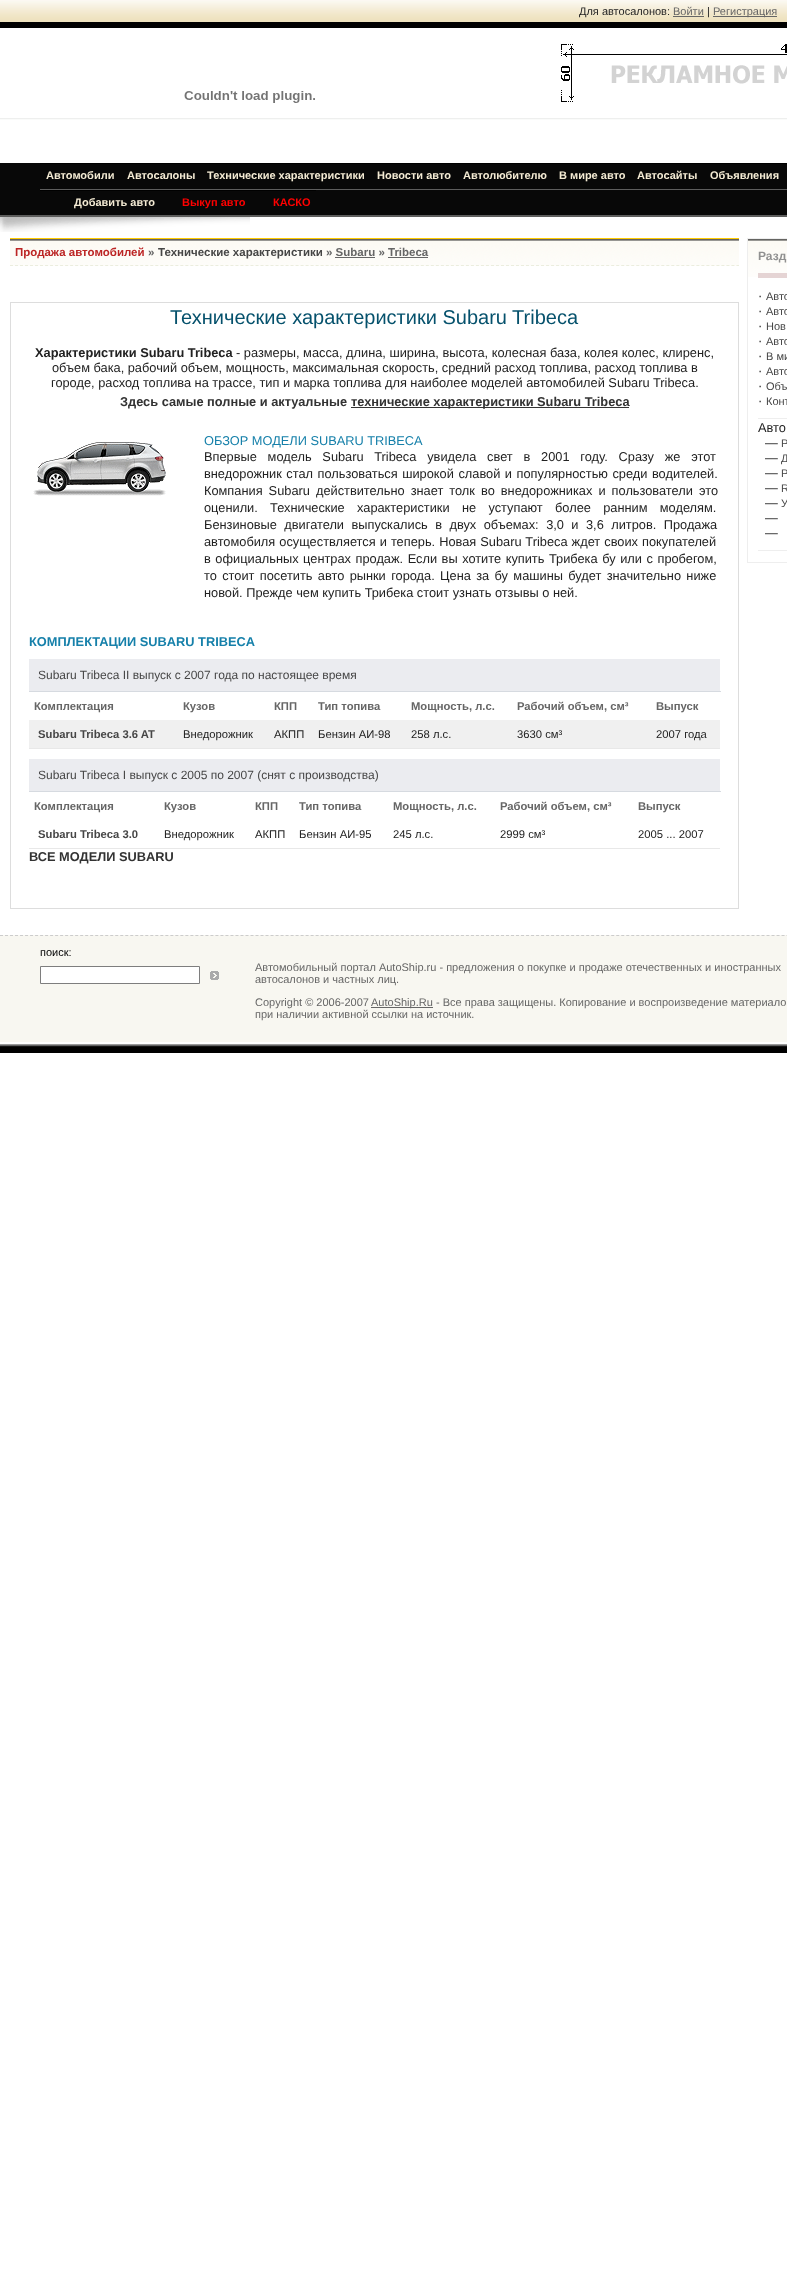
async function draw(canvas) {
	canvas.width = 787;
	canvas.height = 2275;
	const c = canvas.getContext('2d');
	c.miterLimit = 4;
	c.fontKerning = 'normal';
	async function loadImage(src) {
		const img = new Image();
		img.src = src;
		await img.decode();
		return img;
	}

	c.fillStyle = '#fff';
	c.fillRect(0, 0, 787, 2275);
	c.drawImage(await loadImage('img1.png'), 0, 0, 787, 22);
	c.font = '11px Liberation Sans';
	c.fillStyle = '#222';
	c.fillText('Для автосалонов:', 579, 15);
	c.fillStyle = '#666';
	c.fillText('Войти', 673, 15);
	c.fillRect(673, 16, 31, 1);
	c.fillStyle = '#222';
	c.fillText('|', 707, 15);
	c.fillStyle = '#666';
	c.fillRect(713, 16, 64, 1);
	c.fillText('Регистрация', 713, 15);
	c.drawImage(await loadImage('img2.png'), 0, 1044, 787, 9);
	c.fillStyle = '#000';
	c.fillRect(0, 22, 787, 6);
	c.drawImage(await loadImage('img3.png'), 0, 118, 500, 2);
	c.drawImage(await loadImage('img4.png'), 184, 91, 131, 12);
	c.drawImage(await loadImage('img5.png'), 500, 118, 287, 2);
	c.drawImage(await loadImage('img6.png'), 561, 44, 226, 58);
	for (const [x, y, w, h, color] of [
		[0, 163, 787, 52, '#080808'],
		[0, 215, 787, 2, '#5d5d5c'],
		[40, 163, 747, 1, '#000'],
		[40, 189, 747, 1, '#5d5d5d'],
	]) {
		c.fillStyle = color;
		c.fillRect(x, y, w, h);
	}
	c.font = 'bold 11px Liberation Sans';
	c.fillStyle = '#f4ebd4';
	for (const [text, x, y] of [
		['Автомобили', 46, 179],
		['Автосалоны', 127, 179],
		['Технические характеристики', 207, 179],
		['Новости авто', 377, 179],
		['Автолюбителю', 463, 179],
		['В мире авто', 559, 179],
		['Автосайты', 637, 179],
		['Объявления', 710, 179],
	]) {
		c.fillText(text, x, y);
	}
	c.fillStyle = '#000';
	c.fillRect(40, 190, 276, 1);
	c.fillStyle = '#f4ebd4';
	c.fillText('Добавить авто', 74, 206);
	c.fillStyle = '#f00';
	c.fillText('Выкуп авто', 182, 206);
	c.fillText('КАСКО', 273, 206);
	c.drawImage(await loadImage('img7.png'), 0, 217, 250, 15);
	c.drawImage(await loadImage('img8.png'), 10, 239, 729, 27);
	c.fillStyle = '#fc0';
	c.fillRect(10, 238, 729, 1);
	c.beginPath();
	c.moveTo(10, 265.5);
	c.lineTo(739, 265.5);
	c.strokeStyle = '#ebedde';
	c.setLineDash([3, 2.01]);
	c.stroke();
	c.font = 'bold 11.5px Liberation Sans';
	c.fillStyle = '#bc2525';
	c.fillText('Продажа автомобилей', 15, 256);
	c.fillStyle = '#666';
	c.fillText('»', 148, 256);
	c.fillStyle = '#464646';
	c.fillText('Технические характеристики', 158, 256);
	c.fillStyle = '#666';
	c.fillText('» Subaru » Tribeca', 326, 256);
	c.fillRect(335, 257, 40, 1);
	c.fillRect(388, 257, 40, 1);
	c.strokeStyle = '#ddd';
	c.setLineDash([]);
	c.strokeRect(10.5, 302.5, 728, 606);
	c.font = '20px Liberation Sans';
	c.fillStyle = '#05516c';
	c.fillText('Технические характеристики Subaru Tribeca', 170, 324);
	c.font = 'bold 12.8px Liberation Sans';
	c.fillStyle = '#222';
	c.fillText('Характеристики Subaru Tribeca', 35, 357);
	c.font = '12.8px Liberation Sans';
	for (const [text, x, y] of [
		['- размеры, масса, длина, ширина, высота, колесная база, колея колес, клиренс,', 236, 357],
		['объем бака, рабочий объем, мощность, максимальная скорость, средний расход топлива, расход топлива в', 52, 372],
		['городе, расход топлива на трассе, тип и марка топлива для наиболее моделей автомобилей Subaru Tribeca.', 51, 387],
	]) {
		c.fillText(text, x, y);
	}
	c.font = 'bold 12.8px Liberation Sans';
	c.fillStyle = '#333';
	c.fillText('Здесь самые полные и актуальные', 120, 406);
	c.fillRect(351, 407, 278, 1);
	c.fillText('технические характеристики Subaru Tribeca', 351, 406);
	c.drawImage(await loadImage('img9.png'), 33, 442, 133, 54);
	c.font = '12.8px Liberation Sans';
	c.fillStyle = '#1680aa';
	c.fillText('ОБЗОР МОДЕЛИ SUBARU TRIBECA', 204, 445);
	c.wordSpacing = '7.25px';
	c.fillStyle = '#222';
	c.fillText('Впервые модель Subaru Tribeca увидела свет в 2001 году. Сразу же этот', 204, 461);
	c.wordSpacing = '1px';
	c.fillText('внедорожник стал пользоваться широкой славой и популярностью среди водителей.', 204, 478);
	c.wordSpacing = '2.5px';
	c.fillText('Компания Subaru действительно знает толк во внедорожниках и пользователи это', 204, 495);
	c.wordSpacing = '8.75px';
	c.fillText('оценили. Технические характеристики не уступают более ранним моделям.', 204, 512);
	c.wordSpacing = '3.9px';
	c.fillText('Бензиновые двигатели выпускались в двух объемах: 3,0 и 3,6 литров. Продажа', 204, 529);
	c.wordSpacing = '0.5px';
	c.fillText('автомобиля осуществляется и теперь. Новая Subaru Tribeca ждет своих покупателей', 204, 546);
	c.wordSpacing = '1px';
	c.fillText('в официальных центрах продаж. Если вы хотите купить Трибека бу или с пробегом,', 204, 563);
	c.wordSpacing = '1.8px';
	c.fillText('то стоит посетить авто рынки города. Цена за бу машины будет значительно ниже', 204, 580);
	c.wordSpacing = '0px';
	c.fillText('новой. Прежде чем купить Трибека стоит узнать отзывы о ней.', 204, 597);
	c.font = 'bold 12.8px Liberation Sans';
	c.fillStyle = '#1680aa';
	c.fillText('КОМПЛЕКТАЦИИ SUBARU TRIBECA', 29, 646);
	c.fillStyle = '#ebecf0';
	c.fillRect(29, 659, 691, 32);
	c.fillStyle = '#d6dae0';
	c.fillRect(29, 691, 692, 1);
	c.font = '12px Liberation Sans';
	c.fillStyle = '#464646';
	c.fillText('Subaru Tribeca II выпуск с 2007 года по настоящее время', 38, 679);
	c.fillStyle = '#e8e8e8';
	c.fillRect(29, 748, 691, 1);
	c.font = 'bold 11.25px Liberation Sans';
	c.fillStyle = '#666';
	for (const [text, x, y] of [
		['Комплектация', 34, 710],
		['Кузов', 183, 710],
		['КПП', 274, 710],
		['Тип топива', 318, 710],
		['Мощность, л.с.', 411, 710],
		['Рабочий объем, см³', 517, 710],
		['Выпуск', 656, 710],
	]) {
		c.fillText(text, x, y);
	}
	c.fillStyle = '#f0f0f0';
	c.fillRect(29, 720, 691, 28);
	c.fillStyle = '#464646';
	c.fillText('Subaru Tribeca 3.6 AT', 38, 738);
	c.font = '11.25px Liberation Sans';
	c.fillStyle = '#222';
	for (const [text, x, y] of [
		['Внедорожник', 183, 738],
		['АКПП', 274, 738],
		['Бензин АИ-98', 318, 738],
		['258 л.с.', 411, 738],
		['3630 см³', 517, 738],
		['2007 года', 656, 738],
	]) {
		c.fillText(text, x, y);
	}
	c.fillStyle = '#ebecf0';
	c.fillRect(29, 759, 691, 32);
	c.fillStyle = '#d6dae0';
	c.fillRect(29, 791, 692, 1);
	c.font = '12px Liberation Sans';
	c.fillStyle = '#464646';
	c.fillText('Subaru Tribeca I выпуск с 2005 по 2007 (снят с производства)', 38, 779);
	c.fillStyle = '#e8e8e8';
	c.fillRect(29, 848, 691, 1);
	c.font = 'bold 11.25px Liberation Sans';
	c.fillStyle = '#666';
	for (const [text, x, y] of [
		['Комплектация', 34, 810],
		['Кузов', 164, 810],
		['КПП', 255, 810],
		['Тип топива', 299, 810],
		['Мощность, л.с.', 393, 810],
		['Рабочий объем, см³', 500, 810],
		['Выпуск', 638, 810],
	]) {
		c.fillText(text, x, y);
	}
	c.fillStyle = '#464646';
	c.fillText('Subaru Tribeca 3.0', 38, 838);
	c.font = '11.25px Liberation Sans';
	c.fillStyle = '#222';
	for (const [text, x, y] of [
		['Внедорожник', 164, 838],
		['АКПП', 255, 838],
		['Бензин АИ-95', 299, 838],
		['245 л.с.', 393, 838],
		['2999 см³', 500, 838],
		['2005 ... 2007', 638, 838],
	]) {
		c.fillText(text, x, y);
	}
	c.font = 'bold 12.8px Liberation Sans';
	c.fillStyle = '#333';
	c.fillText('ВСЕ МОДЕЛИ SUBARU', 29, 861);
	c.drawImage(await loadImage('img10.png'), 748, 239, 39, 38);
	c.strokeStyle = '#eee';
	c.strokeRect(747.5, 238.5, 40, 324);
	c.font = 'bold 12px Liberation Sans';
	c.fillStyle = '#909090';
	c.fillText('Разд', 758, 260);
	c.fillStyle = '#e5d4d4';
	c.fillRect(758, 273, 29, 5);
	c.font = '12.8px Liberation Sans';
	c.fillStyle = '#222';
	c.fillText('·', 758, 300);
	c.font = '11px Liberation Sans';
	c.fillStyle = '#464646';
	c.fillText('Авто', 766, 300);
	c.font = '12.8px Liberation Sans';
	c.fillStyle = '#222';
	c.fillText('·', 758, 315);
	c.font = '11px Liberation Sans';
	c.fillStyle = '#464646';
	c.fillText('Авто', 766, 315);
	c.font = '12.8px Liberation Sans';
	c.fillStyle = '#222';
	c.fillText('·', 758, 330);
	c.font = '11px Liberation Sans';
	c.fillStyle = '#464646';
	c.fillText('Нов', 766, 330);
	c.font = '12.8px Liberation Sans';
	c.fillStyle = '#222';
	c.fillText('·', 758, 345);
	c.font = '11px Liberation Sans';
	c.fillStyle = '#464646';
	c.fillText('Авто', 766, 345);
	c.font = '12.8px Liberation Sans';
	c.fillStyle = '#222';
	c.fillText('·', 758, 360);
	c.font = '11px Liberation Sans';
	c.fillStyle = '#464646';
	c.fillText('В ми', 766, 360);
	c.font = '12.8px Liberation Sans';
	c.fillStyle = '#222';
	c.fillText('·', 758, 375);
	c.font = '11px Liberation Sans';
	c.fillStyle = '#464646';
	c.fillText('Авто', 766, 375);
	c.font = '12.8px Liberation Sans';
	c.fillStyle = '#222';
	c.fillText('·', 758, 390);
	c.font = '11px Liberation Sans';
	c.fillStyle = '#464646';
	c.fillText('Объ', 766, 390);
	c.font = '12.8px Liberation Sans';
	c.fillStyle = '#222';
	c.fillText('·', 758, 405);
	c.font = '11px Liberation Sans';
	c.fillStyle = '#464646';
	c.fillText('Конт', 766, 405);
	c.fillStyle = '#eee';
	c.fillRect(758, 418, 29, 1);
	c.font = '12.8px Liberation Sans';
	c.fillStyle = '#222';
	c.fillText('Авто', 758, 432);
	c.fillText('—', 765, 447);
	c.font = '11px Liberation Sans';
	c.fillStyle = '#464646';
	c.fillText('Р', 781, 447);
	c.font = '12.8px Liberation Sans';
	c.fillStyle = '#222';
	c.fillText('—', 765, 462);
	c.font = '11px Liberation Sans';
	c.fillStyle = '#464646';
	c.fillText('Д', 781, 462);
	c.font = '12.8px Liberation Sans';
	c.fillStyle = '#222';
	c.fillText('—', 765, 477);
	c.font = '11px Liberation Sans';
	c.fillStyle = '#464646';
	c.fillText('Р', 781, 477);
	c.font = '12.8px Liberation Sans';
	c.fillStyle = '#222';
	c.fillText('—', 765, 492);
	c.font = '11px Liberation Sans';
	c.fillStyle = '#464646';
	c.fillText('R', 781, 492);
	c.font = '12.8px Liberation Sans';
	c.fillStyle = '#222';
	c.fillText('—', 765, 507);
	c.font = '11px Liberation Sans';
	c.fillStyle = '#464646';
	c.fillText('У', 781, 507);
	c.font = '12.8px Liberation Sans';
	c.fillStyle = '#222';
	c.fillText('—', 765, 522);
	c.fillText('—', 765, 537);
	c.fillStyle = '#eee';
	c.fillRect(758, 550, 29, 1);
	c.fillStyle = '#f8f7f1';
	c.fillRect(0, 935, 787, 107);
	c.beginPath();
	c.moveTo(0, 935.5);
	c.lineTo(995, 935.5);
	c.strokeStyle = '#ccc';
	c.setLineDash([3, 2.01]);
	c.stroke();
	c.font = '11px Liberation Sans';
	c.fillStyle = '#000';
	c.fillText('поиск:', 40, 956);
	c.fillStyle = '#fff';
	c.beginPath();
	c.rect(40.5, 966.5, 159, 17);
	c.fill();
	c.strokeStyle = '#7e7e7e';
	c.setLineDash([]);
	c.stroke();
	c.drawImage(await loadImage('img11.png'), 210, 971, 9, 9);
	c.fillStyle = '#666';
	for (const [text, x, y] of [
		['Автомобильный портал AutoShip.ru - предложения о покупке и продаже отечественных и иностранных', 255, 971],
		['автосалонов и частных лиц.', 255, 983],
		['Copyright © 2006-2007', 255, 1006],
	]) {
		c.fillText(text, x, y);
	}
	c.fillRect(371, 1007, 62, 1);
	for (const [text, x, y] of [
		['AutoShip.Ru', 371, 1006],
		['- Все права защищены. Копирование и воспроизведение материало', 436, 1006],
		['при наличии активной ссылки на источник.', 255, 1018],
	]) {
		c.fillText(text, x, y);
	}
}

draw(document.querySelector('canvas'));
